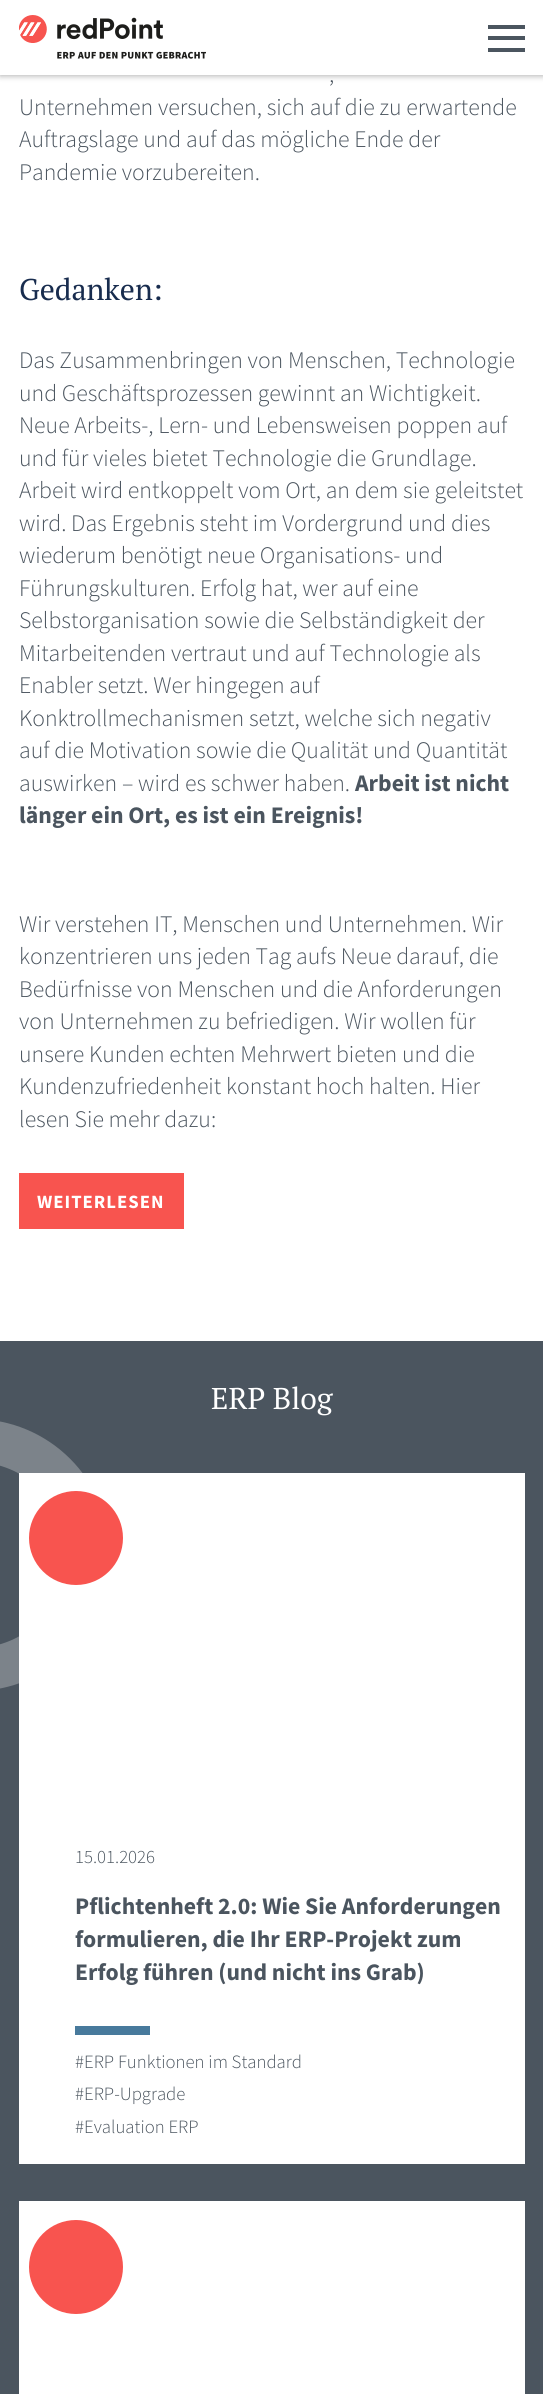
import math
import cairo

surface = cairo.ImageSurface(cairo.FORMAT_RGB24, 543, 2394)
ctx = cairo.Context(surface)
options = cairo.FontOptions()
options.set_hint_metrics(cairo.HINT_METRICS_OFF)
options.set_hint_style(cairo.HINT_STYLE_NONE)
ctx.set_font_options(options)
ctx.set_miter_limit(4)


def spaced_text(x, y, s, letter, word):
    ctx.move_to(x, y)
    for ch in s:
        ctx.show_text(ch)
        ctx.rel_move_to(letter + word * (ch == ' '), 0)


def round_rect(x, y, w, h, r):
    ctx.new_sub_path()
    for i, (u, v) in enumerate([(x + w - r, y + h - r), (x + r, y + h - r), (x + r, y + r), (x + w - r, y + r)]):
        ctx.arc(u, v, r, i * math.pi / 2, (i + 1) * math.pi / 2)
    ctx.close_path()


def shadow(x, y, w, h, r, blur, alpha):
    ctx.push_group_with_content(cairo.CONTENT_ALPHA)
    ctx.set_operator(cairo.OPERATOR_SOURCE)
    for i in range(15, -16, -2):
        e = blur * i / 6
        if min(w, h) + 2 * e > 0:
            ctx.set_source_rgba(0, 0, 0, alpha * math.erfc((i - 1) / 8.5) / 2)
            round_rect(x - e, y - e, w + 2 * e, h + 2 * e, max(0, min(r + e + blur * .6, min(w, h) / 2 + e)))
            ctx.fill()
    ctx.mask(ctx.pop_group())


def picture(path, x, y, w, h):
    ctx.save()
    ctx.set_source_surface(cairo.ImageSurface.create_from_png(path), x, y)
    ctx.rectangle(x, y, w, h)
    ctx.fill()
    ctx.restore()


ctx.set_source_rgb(1, 1, 1)
ctx.paint()
ctx.set_source_rgb(0, 0, 0)
shadow(0, 1, 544, 75, 0, 3, 0.3)
ctx.set_source_rgb(1, 1, 1)
ctx.rectangle(0, 0, 543, 75)
ctx.fill()
picture("img1.png", 19, 15, 187, 44)
ctx.set_source_rgb(0.294, 0.333, 0.373)
ctx.rectangle(488, 36, 37, 4)
ctx.fill()
ctx.rectangle(488, 25, 37, 4)
ctx.fill()
ctx.rectangle(488, 48, 37, 4)
ctx.fill()
ctx.select_font_face("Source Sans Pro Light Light")
ctx.set_font_size(23.75)
ctx.move_to(329, 82)
ctx.show_text(",")
ctx.move_to(19, 115)
ctx.show_text("Unternehmen versuchen, sich auf die zu erwartende")
ctx.move_to(19, 147)
ctx.show_text("Auftragslage und auf das mögliche Ende der")
ctx.move_to(19, 180)
ctx.show_text("Pandemie vorzubereiten.")
ctx.select_font_face("PT Serif")
ctx.set_font_size(30)
ctx.set_source_rgb(0.094, 0.173, 0.306)
ctx.move_to(19, 300)
ctx.show_text("Gedanken:")
ctx.select_font_face("Source Sans Pro Light Light")
ctx.set_font_size(23.75)
ctx.set_source_rgb(0.294, 0.333, 0.373)
ctx.move_to(19, 368)
ctx.show_text("Das Zusammenbringen von Menschen, Technologie")
ctx.move_to(19, 401)
ctx.show_text("und Geschäftsprozessen gewinnt an Wichtigkeit.")
ctx.move_to(19, 433)
ctx.show_text("Neue Arbeits-, Lern- und Lebensweisen poppen auf")
ctx.move_to(19, 466)
ctx.show_text("und für vieles bietet Technologie die Grundlage.")
ctx.move_to(19, 498)
ctx.show_text("Arbeit wird entkoppelt vom Ort, an dem sie geleitstet")
ctx.move_to(19, 531)
ctx.show_text("wird. Das Ergebnis steht im Vordergrund und dies")
ctx.move_to(19, 563)
ctx.show_text("wiederum benötigt neue Organisations- und")
ctx.move_to(19, 596)
ctx.show_text("Führungskulturen. Erfolg hat, wer auf eine")
ctx.move_to(19, 628)
ctx.show_text("Selbstorganisation sowie die Selbständigkeit der")
ctx.move_to(19, 661)
ctx.show_text("Mitarbeitenden vertraut und auf Technologie als")
ctx.move_to(19, 693)
ctx.show_text("Enabler setzt. Wer hingegen auf")
ctx.move_to(19, 726)
ctx.show_text("Konktrollmechanismen setzt, welche sich negativ")
ctx.move_to(19, 758)
ctx.show_text("auf die Motivation sowie die Qualität und Quantität")
ctx.move_to(19, 791)
ctx.show_text("auswirken – wird es schwer haben.")
ctx.select_font_face("Source Sans Pro", cairo.FONT_SLANT_NORMAL, cairo.FONT_WEIGHT_BOLD)
ctx.move_to(355, 791)
ctx.show_text("Arbeit ist nicht")
ctx.move_to(19, 823)
ctx.show_text("länger ein Ort, es ist ein Ereignis!")
ctx.select_font_face("Source Sans Pro Light Light")
ctx.move_to(19, 932)
ctx.show_text("Wir verstehen IT, Menschen und Unternehmen. Wir")
ctx.move_to(19, 964)
ctx.show_text("konzentrieren uns jeden Tag aufs Neue darauf, die")
ctx.move_to(19, 997)
ctx.show_text("Bedürfnisse von Menschen und die Anforderungen")
ctx.move_to(19, 1029)
ctx.show_text("von Unternehmen zu befriedigen. Wir wollen für")
ctx.move_to(19, 1062)
ctx.show_text("unsere Kunden echten Mehrwert bieten und die")
ctx.move_to(19, 1094)
ctx.show_text("Kundenzufriedenheit konstant hoch halten. Hier")
ctx.move_to(19, 1127)
ctx.show_text("lesen Sie mehr dazu:")
ctx.set_source_rgb(0.969, 0.329, 0.31)
ctx.rectangle(19, 1173, 165, 56)
ctx.fill()
ctx.select_font_face("Source Sans Pro", cairo.FONT_SLANT_NORMAL, cairo.FONT_WEIGHT_BOLD)
ctx.set_font_size(18.75)
ctx.set_source_rgb(1, 1, 1)
spaced_text(37, 1208, "WEITERLESEN", 1, 0)
ctx.set_source_rgb(0.294, 0.333, 0.373)
ctx.rectangle(0, 1341, 543, 1053)
ctx.fill()
ctx.arc(-26, 1555, 114.5, 0, 2 * math.pi)
ctx.set_source_rgb(0.486, 0.514, 0.541)
ctx.set_line_width(43)
ctx.stroke()
ctx.select_font_face("PT Serif")
ctx.set_font_size(30)
ctx.set_source_rgb(1, 1, 1)
ctx.move_to(211, 1409)
ctx.show_text("ERP Blog")
ctx.rectangle(19, 1473, 506, 691)
ctx.fill()
ctx.set_source_rgb(0.969, 0.329, 0.31)
ctx.arc(76, 1538, 47, 0, 2 * math.pi)
ctx.fill()
ctx.select_font_face("Source Sans Pro Light Light")
ctx.set_font_size(18.75)
ctx.set_source_rgb(0.294, 0.333, 0.373)
ctx.move_to(75, 1863)
ctx.show_text("15.01.2026")
ctx.select_font_face("Source Sans Pro", cairo.FONT_SLANT_NORMAL, cairo.FONT_WEIGHT_BOLD)
ctx.set_font_size(23.75)
ctx.move_to(75, 1914)
ctx.show_text("Pflichtenheft 2.0: Wie Sie Anforderungen")
ctx.move_to(75, 1947)
ctx.show_text("formulieren, die Ihr ERP-Projekt zum")
ctx.move_to(75, 1980)
ctx.show_text("Erfolg führen (und nicht ins Grab)")
ctx.set_source_rgb(0.282, 0.478, 0.612)
ctx.rectangle(75, 2026, 75, 9)
ctx.fill()
ctx.select_font_face("Source Sans Pro Light Light")
ctx.set_font_size(18.75)
ctx.set_source_rgb(0.294, 0.333, 0.373)
ctx.move_to(75, 2068)
ctx.show_text("#ERP Funktionen im Standard")
ctx.move_to(75, 2100)
ctx.show_text("#ERP-Upgrade")
ctx.move_to(75, 2133)
ctx.show_text("#Evaluation ERP")
ctx.set_source_rgb(1, 1, 1)
ctx.rectangle(19, 2201, 506, 193)
ctx.fill()
ctx.set_source_rgb(0.969, 0.329, 0.31)
ctx.arc(76, 2267, 47, 0, 2 * math.pi)
ctx.fill()
surface.write_to_png("page.png")
